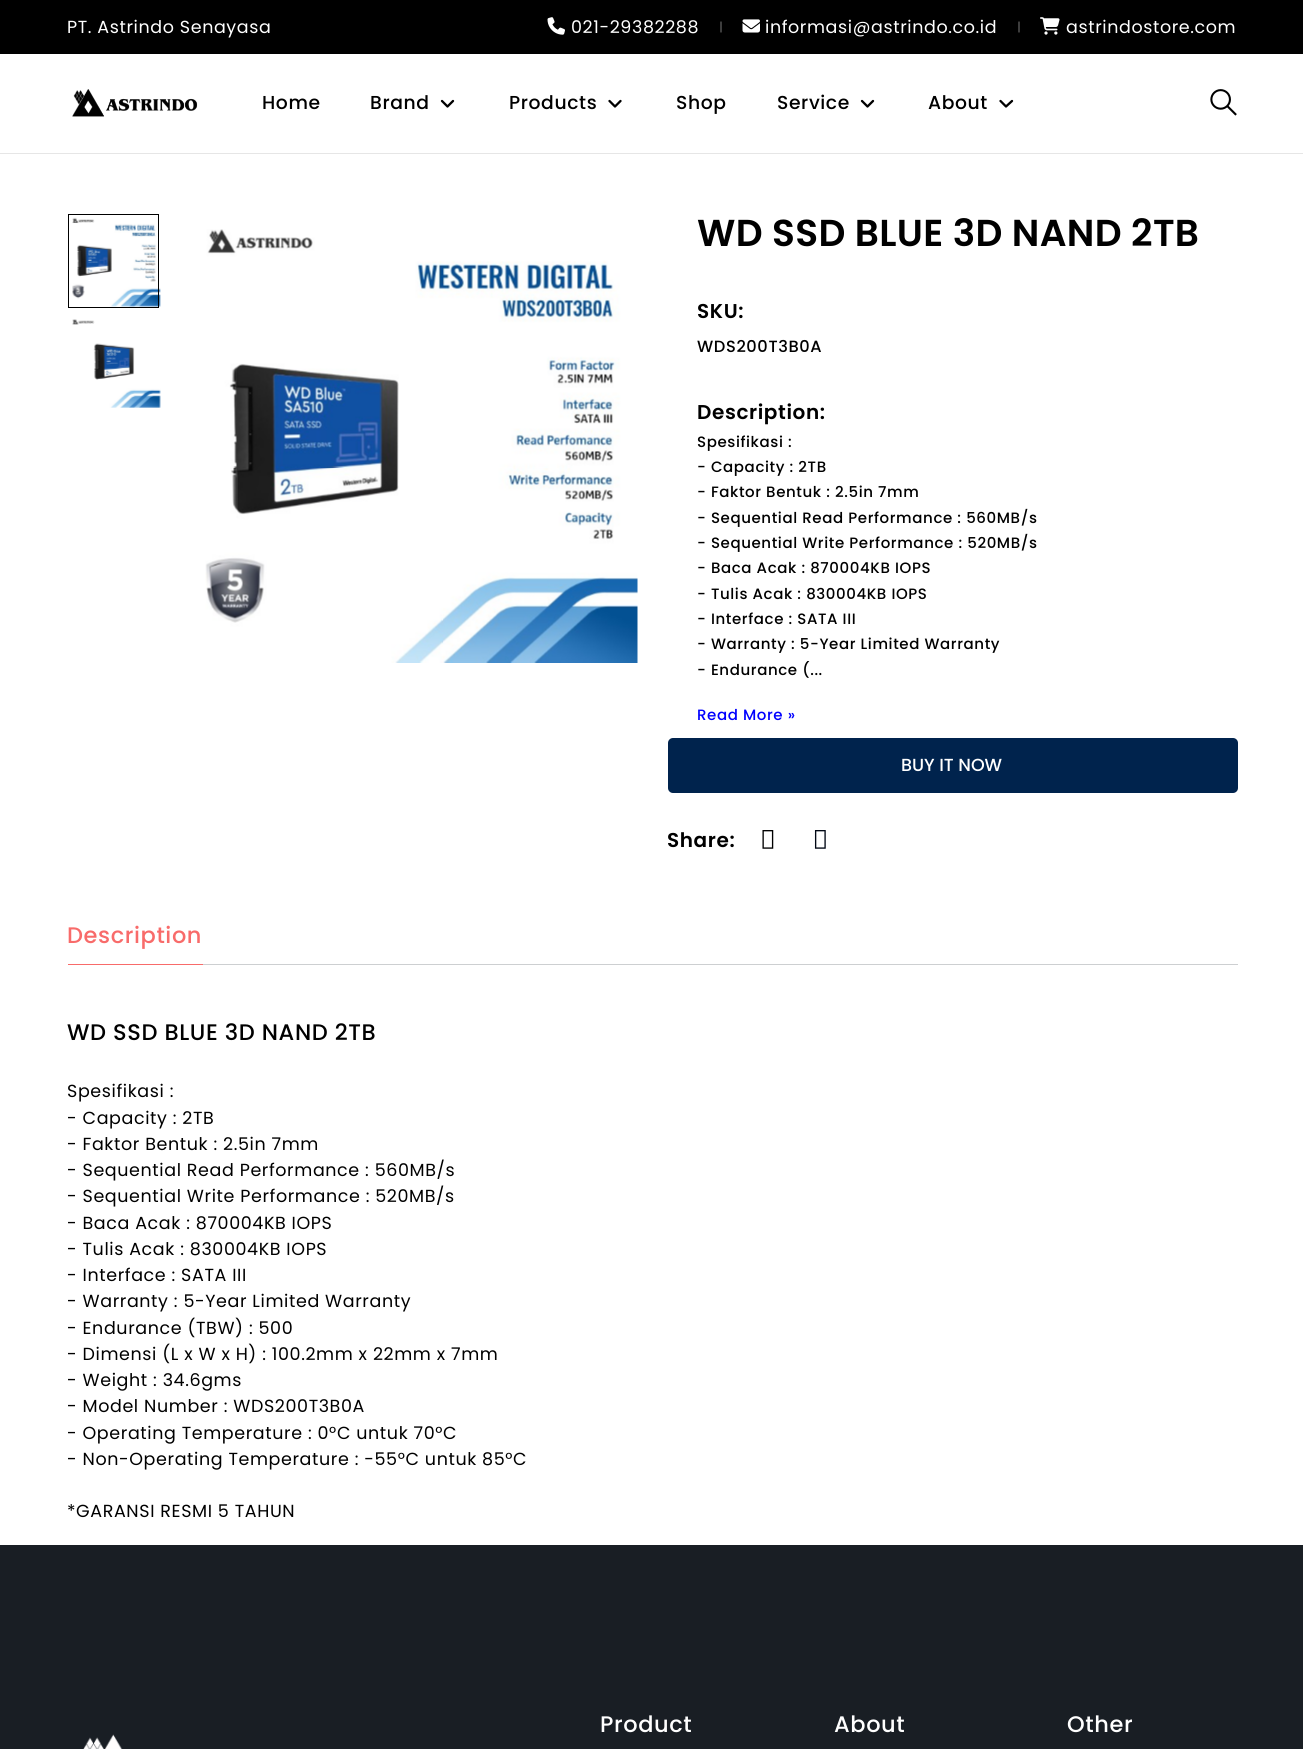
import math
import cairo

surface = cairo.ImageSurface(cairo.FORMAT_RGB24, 1303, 1749)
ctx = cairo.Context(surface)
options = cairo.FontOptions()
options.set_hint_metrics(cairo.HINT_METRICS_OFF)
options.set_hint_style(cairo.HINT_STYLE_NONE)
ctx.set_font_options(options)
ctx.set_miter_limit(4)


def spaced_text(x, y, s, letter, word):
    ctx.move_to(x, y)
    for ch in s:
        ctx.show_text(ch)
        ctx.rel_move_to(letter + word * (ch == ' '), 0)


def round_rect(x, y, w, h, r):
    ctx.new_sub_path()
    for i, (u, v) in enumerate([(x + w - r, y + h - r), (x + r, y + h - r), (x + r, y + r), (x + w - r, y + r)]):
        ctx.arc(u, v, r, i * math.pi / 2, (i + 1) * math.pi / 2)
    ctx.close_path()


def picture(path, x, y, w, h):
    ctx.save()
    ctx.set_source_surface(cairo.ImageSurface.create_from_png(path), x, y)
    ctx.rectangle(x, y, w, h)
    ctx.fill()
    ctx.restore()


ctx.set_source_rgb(1, 1, 1)
ctx.paint()
ctx.set_source_rgb(0, 0, 0)
ctx.rectangle(0, 0, 1303, 54)
ctx.fill()
ctx.select_font_face("Poppins")
ctx.set_font_size(17.5)
ctx.set_source_rgb(1, 1, 1)
spaced_text(67, 33, "PT. Astrindo Senayasa", 0.6, 0)
picture("img1.png", 547, 17, 18, 18)
spaced_text(571, 33, "021-29382288", 0.6, 0)
ctx.new_path()
ctx.move_to(721, 22)
ctx.line_to(721, 32)
ctx.set_source_rgb(0.4, 0.4, 0.4)
ctx.set_line_width(1.2)
ctx.set_line_cap(cairo.LINE_CAP_ROUND)
ctx.stroke()
picture("img2.png", 742, 19, 18, 14)
ctx.set_source_rgb(1, 1, 1)
spaced_text(765, 33, "informasi@astrindo.co.id", 0.6, 0)
ctx.new_path()
ctx.move_to(1019, 22)
ctx.line_to(1019, 32)
ctx.set_source_rgb(0.4, 0.4, 0.4)
ctx.stroke()
picture("img3.png", 1040, 17, 20, 18)
ctx.set_source_rgb(1, 1, 1)
spaced_text(1066, 33, "astrindostore.com", 0.6, 0)
ctx.set_source_rgb(0.902, 0.902, 0.902)
ctx.rectangle(0, 153, 1303, 1)
ctx.fill()
picture("img4.png", 72, 89, 126, 28)
ctx.select_font_face("Poppins Medium")
ctx.set_font_size(18.75)
ctx.set_source_rgb(0, 0, 0)
spaced_text(262, 109, "Home", 0.6, 0)
spaced_text(370, 109, "Brand", 0.6, 0)
ctx.new_path()
ctx.move_to(442, 101)
ctx.line_to(447.5, 106.5)
ctx.line_to(453, 101)
ctx.set_line_width(2.3)
ctx.set_line_join(cairo.LINE_JOIN_ROUND)
ctx.stroke()
spaced_text(509, 109, "Products", 0.6, 0)
ctx.new_path()
ctx.move_to(609.5, 101)
ctx.line_to(615, 106.5)
ctx.line_to(620.5, 101)
ctx.stroke()
spaced_text(676, 109, "Shop", 0.6, 0)
spaced_text(777, 109, "Service", 0.6, 0)
ctx.new_path()
ctx.move_to(862, 101)
ctx.line_to(867.5, 106.5)
ctx.line_to(873, 101)
ctx.stroke()
spaced_text(928, 109, "About", 0.6, 0)
ctx.new_path()
ctx.move_to(1000.5, 101)
ctx.line_to(1006, 106.5)
ctx.line_to(1012, 101)
ctx.stroke()
picture("img5.png", 1210, 89, 27, 27)
picture("img6.png", 72, 217, 89, 90)
ctx.rectangle(68.5, 214.5, 90, 93)
ctx.set_line_width(1)
ctx.set_line_cap(cairo.LINE_CAP_BUTT)
ctx.set_line_join(cairo.LINE_JOIN_MITER)
ctx.stroke()
picture("img7.png", 72, 319, 89, 89)
picture("img8.png", 205, 229, 433, 434)
ctx.select_font_face("Poppins SemiBold")
ctx.set_font_size(37.5)
spaced_text(697, 246, "WD SSD BLUE 3D NAND 2TB", 0.3, 0)
ctx.set_font_size(20)
spaced_text(697, 318, "SKU:", 0.6, 0)
ctx.select_font_face("Poppins Medium")
ctx.set_font_size(16.25)
spaced_text(697, 352, "WDS200T3B0A", 0.6, 0)
ctx.select_font_face("Poppins SemiBold")
ctx.set_font_size(20)
spaced_text(697, 419, "Description:", 0.6, 0)
ctx.select_font_face("Poppins Medium")
ctx.set_font_size(15)
spaced_text(697, 447, "Spesifikasi :", 0.6, 0)
spaced_text(697, 472, "- Capacity : 2TB", 0.6, 0)
spaced_text(697, 497, "- Faktor Bentuk : 2.5in 7mm", 0.6, 0)
spaced_text(697, 523, "- Sequential Read Performance : 560MB/s", 0.6, 0)
spaced_text(697, 548, "- Sequential Write Performance : 520MB/s", 0.6, 0)
spaced_text(697, 573, "- Baca Acak : 870004KB IOPS", 0.6, 0)
spaced_text(697, 599, "- Tulis Acak : 830004KB IOPS", 0.6, 0)
spaced_text(697, 624, "- Interface : SATA III", 0.6, 0)
spaced_text(697, 649, "- Warranty : 5-Year Limited Warranty", 0.6, 0)
spaced_text(697, 675, "- Endurance (...", 0.6, 0)
ctx.set_source_rgb(0, 0, 1)
spaced_text(697, 720, "Read More »", 0.6, 0)
ctx.set_source_rgb(0, 0.137, 0.302)
round_rect(668, 738, 570, 55, 5)
ctx.fill()
ctx.set_font_size(17.5)
ctx.set_source_rgb(1, 1, 1)
ctx.move_to(901, 771)
ctx.show_text("BUY IT NOW")
ctx.select_font_face("Poppins SemiBold")
ctx.set_font_size(20)
ctx.set_source_rgb(0, 0, 0)
spaced_text(667, 847, "Share:", 0.6, 0)
picture("img9.png", 762, 830, 12, 19)
picture("img10.png", 814, 830, 12, 19)
ctx.set_source_rgb(0.804, 0.812, 0.82)
ctx.rectangle(203, 964, 1035, 1)
ctx.fill()
ctx.select_font_face("Poppins Medium")
ctx.set_font_size(22.5)
ctx.set_source_rgb(0.969, 0.42, 0.416)
spaced_text(67, 943, "Description", 0.6, 0)
ctx.rectangle(68, 964, 135, 1)
ctx.fill()
ctx.set_source_rgb(0, 0, 0)
spaced_text(67, 1040, "WD SSD BLUE 3D NAND 2TB", 0.6, 0)
ctx.select_font_face("Poppins")
ctx.set_font_size(17.5)
spaced_text(67, 1097, "Spesifikasi :", 0.6, 0)
spaced_text(67, 1124, "- Capacity : 2TB", 0.6, 0)
spaced_text(67, 1150, "- Faktor Bentuk : 2.5in 7mm", 0.6, 0)
spaced_text(67, 1176, "- Sequential Read Performance : 560MB/s", 0.6, 0)
spaced_text(67, 1202, "- Sequential Write Performance : 520MB/s", 0.6, 0)
spaced_text(67, 1229, "- Baca Acak : 870004KB IOPS", 0.6, 0)
spaced_text(67, 1255, "- Tulis Acak : 830004KB IOPS", 0.6, 0)
spaced_text(67, 1281, "- Interface : SATA III", 0.6, 0)
spaced_text(67, 1307, "- Warranty : 5-Year Limited Warranty", 0.6, 0)
spaced_text(67, 1334, "- Endurance (TBW) : 500", 0.6, 0)
spaced_text(67, 1360, "- Dimensi (L x W x H) : 100.2mm x 22mm x 7mm", 0.6, 0)
spaced_text(67, 1386, "- Weight : 34.6gms", 0.6, 0)
spaced_text(67, 1412, "- Model Number : WDS200T3B0A", 0.6, 0)
spaced_text(67, 1439, "- Operating Temperature : 0°C untuk 70°C", 0.6, 0)
spaced_text(67, 1465, "- Non-Operating Temperature : -55°C untuk 85°C", 0.6, 0)
spaced_text(67, 1517, "*GARANSI RESMI 5 TAHUN", 0.6, 0)
ctx.set_source_rgb(0.098, 0.118, 0.141)
ctx.rectangle(0, 1545, 1303, 204)
ctx.fill()
ctx.select_font_face("Poppins Medium")
ctx.set_font_size(22.5)
ctx.set_source_rgb(1, 1, 1)
spaced_text(600, 1732, "Product", 0.6, 0)
spaced_text(834, 1732, "About", 0.6, 0)
spaced_text(1067, 1732, "Other", 0.6, 0)
picture("img11.png", 83, 1734, 40, 15)
surface.write_to_png("page.png")
